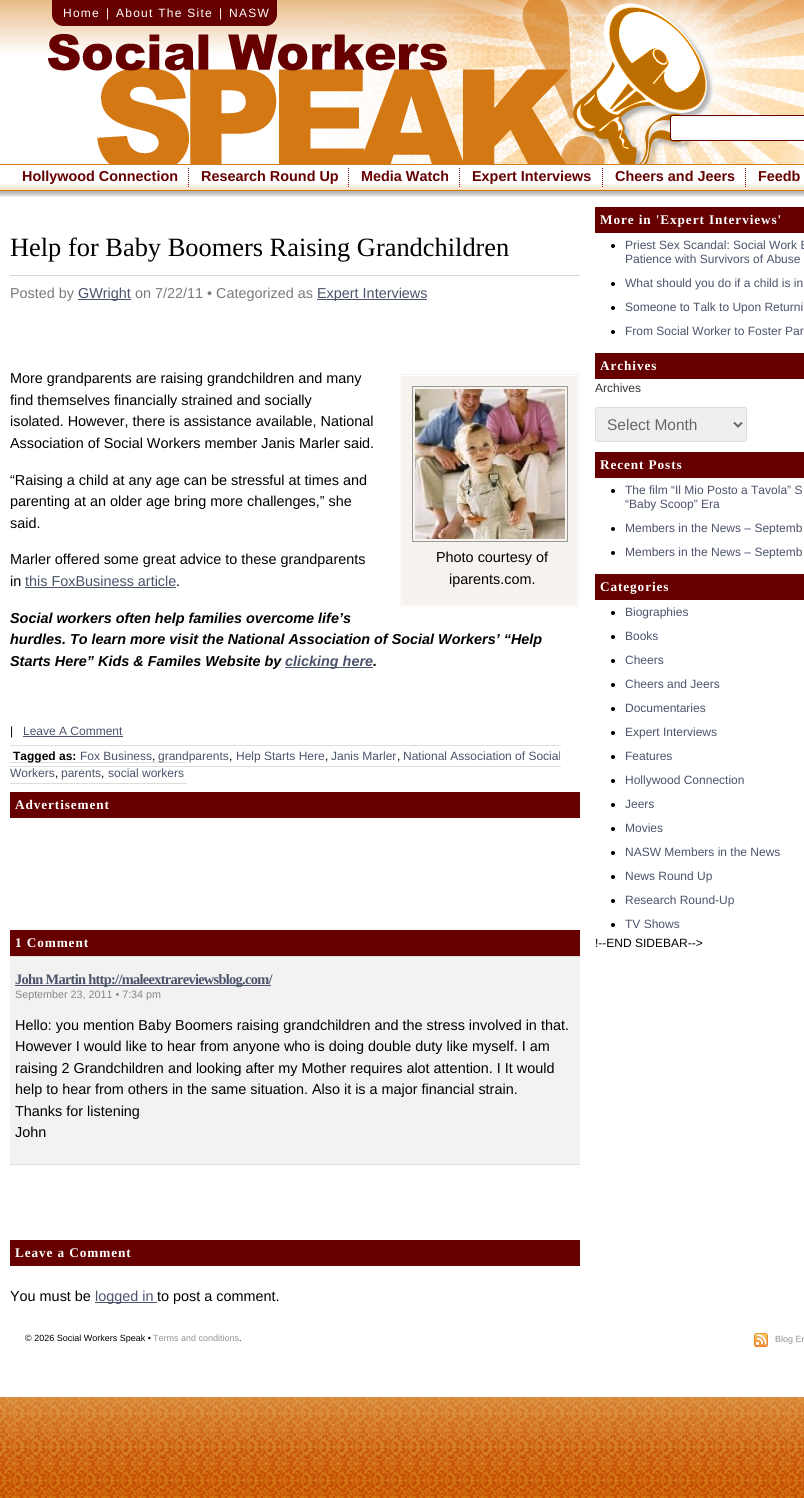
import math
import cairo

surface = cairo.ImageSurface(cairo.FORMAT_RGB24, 804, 1498)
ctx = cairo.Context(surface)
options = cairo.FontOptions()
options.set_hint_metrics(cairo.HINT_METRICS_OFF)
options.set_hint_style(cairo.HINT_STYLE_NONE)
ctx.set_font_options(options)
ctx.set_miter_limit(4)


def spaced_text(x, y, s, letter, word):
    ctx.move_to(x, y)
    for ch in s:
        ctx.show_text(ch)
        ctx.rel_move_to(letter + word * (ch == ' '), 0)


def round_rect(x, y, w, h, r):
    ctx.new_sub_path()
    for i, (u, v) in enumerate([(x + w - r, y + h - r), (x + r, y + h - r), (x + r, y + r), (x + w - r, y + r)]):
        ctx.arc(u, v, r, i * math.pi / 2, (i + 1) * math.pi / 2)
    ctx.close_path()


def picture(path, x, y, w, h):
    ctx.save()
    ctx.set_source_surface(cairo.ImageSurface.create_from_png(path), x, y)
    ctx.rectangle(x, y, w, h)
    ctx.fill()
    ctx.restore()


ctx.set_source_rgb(1, 1, 1)
ctx.paint()
picture("img1.png", 0, 1397, 804, 101)
picture("img2.png", 0, 0, 804, 164)
ctx.select_font_face("Liberation Sans")
ctx.set_font_size(12)
ctx.set_source_rgb(1, 1, 1)
spaced_text(63, 17, "Home", 1.25, 0)
ctx.move_to(106, 17)
ctx.show_text("|")
spaced_text(116, 17, "About The Site", 1.25, 0)
ctx.move_to(219, 17)
ctx.show_text("|")
spaced_text(229, 17, "NASW", 1.25, 0)
round_rect(670.5, 115.5, 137, 25, 2.5)
ctx.fill_preserve()
ctx.set_source_rgb(0.4, 0, 0)
ctx.set_line_width(1)
ctx.stroke()
picture("img3.png", 0, 164, 804, 33)
ctx.new_path()
ctx.move_to(188.5, 168)
ctx.line_to(188.5, 187)
ctx.set_dash([1, 1])
ctx.stroke()
ctx.select_font_face("Liberation Sans", cairo.FONT_SLANT_NORMAL, cairo.FONT_WEIGHT_BOLD)
ctx.set_font_size(14.4)
ctx.move_to(22, 181)
ctx.show_text("Hollywood Connection")
ctx.new_path()
ctx.move_to(348.5, 168)
ctx.line_to(348.5, 187)
ctx.stroke()
ctx.move_to(201, 181)
ctx.show_text("Research Round Up")
ctx.new_path()
ctx.move_to(459.5, 168)
ctx.line_to(459.5, 187)
ctx.stroke()
ctx.move_to(361, 181)
ctx.show_text("Media Watch")
ctx.new_path()
ctx.move_to(602.5, 168)
ctx.line_to(602.5, 187)
ctx.stroke()
ctx.move_to(472, 181)
ctx.show_text("Expert Interviews")
ctx.new_path()
ctx.move_to(745.5, 168)
ctx.line_to(745.5, 187)
ctx.stroke()
ctx.move_to(615, 181)
ctx.show_text("Cheers and Jeers")
ctx.move_to(758, 181)
ctx.show_text("Feedb")
ctx.select_font_face("Liberation Serif")
ctx.set_font_size(26.4)
ctx.set_source_rgb(0, 0, 0)
ctx.move_to(10, 256)
ctx.show_text("Help for Baby Boomers Raising Grandchildren")
ctx.set_source_rgb(0.843, 0.843, 0.843)
ctx.rectangle(10, 275, 570, 1)
ctx.fill()
ctx.select_font_face("Liberation Sans")
ctx.set_font_size(14.4)
ctx.set_source_rgb(0.478, 0.478, 0.478)
ctx.move_to(10, 298)
ctx.show_text("Posted by")
ctx.set_source_rgb(0.294, 0.325, 0.42)
ctx.rectangle(78, 299, 53, 1)
ctx.fill()
ctx.move_to(78, 298)
ctx.show_text("GWright")
ctx.set_source_rgb(0.478, 0.478, 0.478)
ctx.move_to(135, 298)
ctx.show_text("on 7/22/11 • Categorized as")
ctx.set_source_rgb(0.294, 0.325, 0.42)
ctx.rectangle(317, 299, 110, 1)
ctx.fill()
ctx.move_to(317, 298)
ctx.show_text("Expert Interviews")
ctx.set_source_rgb(0, 0, 0)
ctx.move_to(10, 383)
ctx.show_text("More grandparents are raising grandchildren and many")
ctx.move_to(10, 405)
ctx.show_text("find themselves financially strained and socially")
ctx.move_to(10, 426)
ctx.show_text("isolated. However, there is assistance available, National")
ctx.move_to(10, 448)
ctx.show_text("Association of Social Workers member Janis Marler said.")
ctx.move_to(10, 485)
ctx.show_text("“Raising a child at any age can be stressful at times and")
ctx.move_to(10, 506)
ctx.show_text("parenting at an older age bring more challenges,” she")
ctx.move_to(10, 528)
ctx.show_text("said.")
ctx.move_to(10, 564)
ctx.show_text("Marler offered some great advice to these grandparents")
ctx.move_to(10, 586)
ctx.show_text("in")
ctx.set_source_rgb(0.294, 0.325, 0.42)
ctx.move_to(25, 586)
ctx.show_text("this FoxBusiness article")
ctx.rectangle(25, 587, 151, 1)
ctx.fill()
ctx.set_source_rgb(0, 0, 0)
ctx.move_to(176, 586)
ctx.show_text(".")
ctx.set_source_rgb(0.961, 0.953, 0.933)
ctx.rectangle(400, 374, 179, 233)
ctx.fill()
ctx.rectangle(401.5, 375.5, 176, 230)
ctx.set_source_rgb(1, 1, 1)
ctx.set_dash([])
ctx.stroke()
ctx.rectangle(412.5, 386.5, 155, 155)
ctx.set_source_rgb(0.6, 0.6, 0.6)
ctx.stroke()
picture("img4.png", 415, 389, 150, 150)
ctx.set_source_rgb(0, 0, 0)
ctx.move_to(436, 562)
ctx.show_text("Photo courtesy of")
ctx.move_to(449, 584)
ctx.show_text("iparents.com.")
ctx.select_font_face("Liberation Sans", cairo.FONT_SLANT_ITALIC, cairo.FONT_WEIGHT_BOLD)
ctx.move_to(10, 623)
ctx.show_text("Social workers often help families overcome life’s")
ctx.move_to(10, 644)
ctx.show_text("hurdles. To learn more visit the National Association of Social Workers’ “Help")
ctx.move_to(10, 666)
ctx.show_text("Starts Here” Kids & Familes Website by")
ctx.set_source_rgb(0.294, 0.325, 0.42)
ctx.rectangle(285, 667, 88, 1)
ctx.fill()
ctx.move_to(285, 666)
ctx.show_text("clicking here")
ctx.set_source_rgb(0, 0, 0)
ctx.move_to(373, 666)
ctx.show_text(".")
ctx.select_font_face("Liberation Sans")
ctx.set_font_size(12)
ctx.move_to(10, 735)
ctx.show_text("|")
ctx.set_source_rgb(0.294, 0.325, 0.42)
ctx.move_to(23, 735)
ctx.show_text("Leave A Comment")
ctx.rectangle(23, 736, 100, 1)
ctx.fill()
ctx.set_source_rgb(0.867, 0.867, 0.867)
ctx.rectangle(10, 762, 177, 1)
ctx.fill()
ctx.select_font_face("Liberation Sans", cairo.FONT_SLANT_NORMAL, cairo.FONT_WEIGHT_BOLD)
ctx.set_source_rgb(0, 0, 0)
ctx.move_to(13, 760)
ctx.show_text("Tagged as:")
ctx.select_font_face("Liberation Sans")
ctx.set_source_rgb(0.294, 0.325, 0.42)
ctx.move_to(80, 760)
ctx.show_text("Fox Business")
ctx.set_source_rgb(0.867, 0.867, 0.867)
ctx.rectangle(10, 745, 551, 1)
ctx.fill()
ctx.set_source_rgb(0, 0, 0)
ctx.move_to(152, 760)
ctx.show_text(",")
ctx.set_source_rgb(0.867, 0.867, 0.867)
ctx.rectangle(10, 766, 551, 1)
ctx.fill()
ctx.set_source_rgb(0.294, 0.325, 0.42)
ctx.move_to(158, 760)
ctx.show_text("grandparents")
ctx.set_source_rgb(0, 0, 0)
ctx.move_to(229, 760)
ctx.show_text(",")
ctx.set_source_rgb(0.294, 0.325, 0.42)
ctx.move_to(236, 760)
ctx.show_text("Help Starts Here")
ctx.set_source_rgb(0, 0, 0)
ctx.move_to(325, 760)
ctx.show_text(",")
ctx.set_source_rgb(0.294, 0.325, 0.42)
ctx.move_to(331, 760)
ctx.show_text("Janis Marler")
ctx.set_source_rgb(0, 0, 0)
ctx.move_to(397, 760)
ctx.show_text(",")
ctx.set_source_rgb(0.294, 0.325, 0.42)
ctx.move_to(403, 760)
ctx.show_text("National Association of Social")
ctx.move_to(10, 777)
ctx.show_text("Workers")
ctx.set_source_rgb(0, 0, 0)
ctx.move_to(55, 777)
ctx.show_text(",")
ctx.set_source_rgb(0.867, 0.867, 0.867)
ctx.rectangle(10, 783, 177, 1)
ctx.fill()
ctx.set_source_rgb(0.294, 0.325, 0.42)
ctx.move_to(61, 777)
ctx.show_text("parents")
ctx.set_source_rgb(0, 0, 0)
ctx.move_to(101, 777)
ctx.show_text(",")
ctx.set_source_rgb(0.294, 0.325, 0.42)
ctx.move_to(108, 777)
ctx.show_text("social workers")
ctx.set_source_rgb(0.4, 0, 0)
ctx.rectangle(10, 792, 570, 26)
ctx.fill()
ctx.select_font_face("Liberation Serif", cairo.FONT_SLANT_NORMAL, cairo.FONT_WEIGHT_BOLD)
ctx.set_font_size(13.25)
ctx.set_source_rgb(1, 1, 1)
spaced_text(15, 809, "Advertisement", 0.9, 0)
ctx.set_source_rgb(0.4, 0, 0)
ctx.rectangle(10, 930, 570, 26)
ctx.fill()
ctx.set_source_rgb(1, 1, 1)
spaced_text(15, 947, "1 Comment", 0.9, 0)
ctx.set_source_rgb(0.949, 0.949, 0.949)
ctx.rectangle(10, 957, 570, 207)
ctx.fill()
ctx.set_source_rgb(0.867, 0.867, 0.867)
ctx.rectangle(10, 956, 570, 1)
ctx.fill()
ctx.rectangle(10, 1164, 570, 1)
ctx.fill()
ctx.set_source_rgb(0.294, 0.325, 0.42)
ctx.rectangle(15, 985, 256, 1)
ctx.fill()
ctx.set_font_size(14.4)
spaced_text(15, 984, "John Martin http://maleextrareviewsblog.com/", -0.7, 0)
ctx.select_font_face("Liberation Sans")
ctx.set_font_size(10.75)
ctx.set_source_rgb(0.525, 0.525, 0.525)
ctx.move_to(15, 998)
ctx.show_text("September 23, 2011 • 7:34 pm")
ctx.set_font_size(14.4)
ctx.set_source_rgb(0, 0, 0)
ctx.move_to(15, 1030)
ctx.show_text("Hello: you mention Baby Boomers raising grandchildren and the stress involved in that.")
ctx.move_to(15, 1051)
ctx.show_text("However I would like to hear from anyone who is doing double duty like myself. I am")
ctx.move_to(15, 1073)
ctx.show_text("raising 2 Grandchildren and looking after my Mother requires alot attention. I It would")
ctx.move_to(15, 1094)
ctx.show_text("help to hear from others in the same situation. Also it is a major financial strain.")
ctx.move_to(15, 1116)
ctx.show_text("Thanks for listening")
ctx.move_to(15, 1137)
ctx.show_text("John")
ctx.set_source_rgb(0.4, 0, 0)
ctx.rectangle(10, 1240, 570, 26)
ctx.fill()
ctx.select_font_face("Liberation Serif", cairo.FONT_SLANT_NORMAL, cairo.FONT_WEIGHT_BOLD)
ctx.set_font_size(13.25)
ctx.set_source_rgb(1, 1, 1)
spaced_text(15, 1257, "Leave a Comment", 0.9, 0)
ctx.select_font_face("Liberation Sans")
ctx.set_font_size(14.4)
ctx.set_source_rgb(0, 0, 0)
ctx.move_to(10, 1301)
ctx.show_text("You must be")
ctx.set_source_rgb(0.294, 0.325, 0.42)
ctx.rectangle(95, 1302, 62, 1)
ctx.fill()
ctx.move_to(95, 1301)
ctx.show_text("logged in")
ctx.set_source_rgb(0, 0, 0)
ctx.move_to(157, 1301)
ctx.show_text("to post a comment.")
ctx.set_source_rgb(0.4, 0, 0)
ctx.rectangle(595, 207, 209, 26)
ctx.fill()
ctx.select_font_face("Liberation Serif", cairo.FONT_SLANT_NORMAL, cairo.FONT_WEIGHT_BOLD)
ctx.set_font_size(13.25)
ctx.set_source_rgb(1, 1, 1)
spaced_text(600, 224, "More in 'Expert Interviews'", 0.9, 0)
ctx.set_source_rgb(0, 0, 0)
ctx.new_path()
ctx.arc(613, 246, 2, 0, 2 * math.pi)
ctx.fill()
ctx.select_font_face("Liberation Sans")
ctx.set_font_size(12)
ctx.set_source_rgb(0.294, 0.325, 0.42)
ctx.move_to(625, 249)
ctx.show_text("Priest Sex Scandal: Social Work E")
ctx.move_to(625, 263)
ctx.show_text("Patience with Survivors of Abuse")
ctx.set_source_rgb(0, 0, 0)
ctx.new_path()
ctx.arc(613, 284, 2, 0, 2 * math.pi)
ctx.fill()
ctx.set_source_rgb(0.294, 0.325, 0.42)
ctx.move_to(625, 287)
ctx.show_text("What should you do if a child is in")
ctx.set_source_rgb(0, 0, 0)
ctx.new_path()
ctx.arc(613, 308, 2, 0, 2 * math.pi)
ctx.fill()
ctx.set_source_rgb(0.294, 0.325, 0.42)
ctx.move_to(625, 311)
ctx.show_text("Someone to Talk to Upon Returni")
ctx.set_source_rgb(0, 0, 0)
ctx.new_path()
ctx.arc(613, 332, 2, 0, 2 * math.pi)
ctx.fill()
ctx.set_source_rgb(0.294, 0.325, 0.42)
ctx.move_to(625, 335)
ctx.show_text("From Social Worker to Foster Par")
ctx.set_source_rgb(0.4, 0, 0)
ctx.rectangle(595, 353, 209, 26)
ctx.fill()
ctx.select_font_face("Liberation Serif", cairo.FONT_SLANT_NORMAL, cairo.FONT_WEIGHT_BOLD)
ctx.set_font_size(13.25)
ctx.set_source_rgb(1, 1, 1)
spaced_text(600, 370, "Archives", 0.9, 0)
ctx.select_font_face("Liberation Sans")
ctx.set_font_size(12)
ctx.set_source_rgb(0.2, 0.2, 0.2)
ctx.move_to(595, 392)
ctx.show_text("Archives")
ctx.set_source_rgb(0.937, 0.937, 0.937)
round_rect(595.5, 407.5, 151, 34, 2.5)
ctx.fill_preserve()
ctx.set_source_rgb(0.863, 0.863, 0.863)
ctx.stroke()
ctx.new_path()
ctx.move_to(734, 422.5)
ctx.line_to(738, 426.5)
ctx.line_to(742, 422.5)
ctx.set_source_rgb(0.4, 0.4, 0.4)
ctx.set_line_width(2)
ctx.stroke()
ctx.set_font_size(15.5)
ctx.move_to(607, 430)
ctx.show_text("Select Month")
ctx.set_source_rgb(0.4, 0, 0)
ctx.rectangle(595, 452, 209, 26)
ctx.fill()
ctx.select_font_face("Liberation Serif", cairo.FONT_SLANT_NORMAL, cairo.FONT_WEIGHT_BOLD)
ctx.set_font_size(13.25)
ctx.set_source_rgb(1, 1, 1)
spaced_text(600, 469, "Recent Posts", 0.9, 0)
ctx.set_source_rgb(0, 0, 0)
ctx.new_path()
ctx.arc(613, 491, 2, 0, 2 * math.pi)
ctx.fill()
ctx.select_font_face("Liberation Sans")
ctx.set_font_size(12)
ctx.set_source_rgb(0.294, 0.325, 0.42)
ctx.move_to(625, 494)
ctx.show_text("The film “Il Mio Posto a Tavola” S")
ctx.move_to(625, 508)
ctx.show_text("“Baby Scoop” Era")
ctx.set_source_rgb(0, 0, 0)
ctx.new_path()
ctx.arc(613, 529, 2, 0, 2 * math.pi)
ctx.fill()
ctx.set_source_rgb(0.294, 0.325, 0.42)
ctx.move_to(625, 532)
ctx.show_text("Members in the News – Septemb")
ctx.set_source_rgb(0, 0, 0)
ctx.new_path()
ctx.arc(613, 553, 2, 0, 2 * math.pi)
ctx.fill()
ctx.set_source_rgb(0.294, 0.325, 0.42)
ctx.move_to(625, 556)
ctx.show_text("Members in the News – Septemb")
ctx.set_source_rgb(0.4, 0, 0)
ctx.rectangle(595, 574, 209, 26)
ctx.fill()
ctx.select_font_face("Liberation Serif", cairo.FONT_SLANT_NORMAL, cairo.FONT_WEIGHT_BOLD)
ctx.set_font_size(13.25)
ctx.set_source_rgb(1, 1, 1)
spaced_text(600, 591, "Categories", 0.9, 0)
ctx.set_source_rgb(0, 0, 0)
ctx.new_path()
ctx.arc(613, 613, 2, 0, 2 * math.pi)
ctx.fill()
ctx.select_font_face("Liberation Sans")
ctx.set_font_size(12)
ctx.set_source_rgb(0.294, 0.325, 0.42)
ctx.move_to(625, 616)
ctx.show_text("Biographies")
ctx.set_source_rgb(0, 0, 0)
ctx.new_path()
ctx.arc(613, 637, 2, 0, 2 * math.pi)
ctx.fill()
ctx.set_source_rgb(0.294, 0.325, 0.42)
ctx.move_to(625, 640)
ctx.show_text("Books")
ctx.set_source_rgb(0, 0, 0)
ctx.new_path()
ctx.arc(613, 661, 2, 0, 2 * math.pi)
ctx.fill()
ctx.set_source_rgb(0.294, 0.325, 0.42)
ctx.move_to(625, 664)
ctx.show_text("Cheers")
ctx.set_source_rgb(0, 0, 0)
ctx.new_path()
ctx.arc(613, 685, 2, 0, 2 * math.pi)
ctx.fill()
ctx.set_source_rgb(0.294, 0.325, 0.42)
ctx.move_to(625, 688)
ctx.show_text("Cheers and Jeers")
ctx.set_source_rgb(0, 0, 0)
ctx.new_path()
ctx.arc(613, 709, 2, 0, 2 * math.pi)
ctx.fill()
ctx.set_source_rgb(0.294, 0.325, 0.42)
ctx.move_to(625, 712)
ctx.show_text("Documentaries")
ctx.set_source_rgb(0, 0, 0)
ctx.new_path()
ctx.arc(613, 733, 2, 0, 2 * math.pi)
ctx.fill()
ctx.set_source_rgb(0.294, 0.325, 0.42)
ctx.move_to(625, 736)
ctx.show_text("Expert Interviews")
ctx.set_source_rgb(0, 0, 0)
ctx.new_path()
ctx.arc(613, 757, 2, 0, 2 * math.pi)
ctx.fill()
ctx.set_source_rgb(0.294, 0.325, 0.42)
ctx.move_to(625, 760)
ctx.show_text("Features")
ctx.set_source_rgb(0, 0, 0)
ctx.new_path()
ctx.arc(613, 781, 2, 0, 2 * math.pi)
ctx.fill()
ctx.set_source_rgb(0.294, 0.325, 0.42)
ctx.move_to(625, 784)
ctx.show_text("Hollywood Connection")
ctx.set_source_rgb(0, 0, 0)
ctx.new_path()
ctx.arc(613, 805, 2, 0, 2 * math.pi)
ctx.fill()
ctx.set_source_rgb(0.294, 0.325, 0.42)
ctx.move_to(625, 808)
ctx.show_text("Jeers")
ctx.set_source_rgb(0, 0, 0)
ctx.new_path()
ctx.arc(613, 829, 2, 0, 2 * math.pi)
ctx.fill()
ctx.set_source_rgb(0.294, 0.325, 0.42)
ctx.move_to(625, 832)
ctx.show_text("Movies")
ctx.set_source_rgb(0, 0, 0)
ctx.new_path()
ctx.arc(613, 853, 2, 0, 2 * math.pi)
ctx.fill()
ctx.set_source_rgb(0.294, 0.325, 0.42)
ctx.move_to(625, 856)
ctx.show_text("NASW Members in the News")
ctx.set_source_rgb(0, 0, 0)
ctx.new_path()
ctx.arc(613, 877, 2, 0, 2 * math.pi)
ctx.fill()
ctx.set_source_rgb(0.294, 0.325, 0.42)
ctx.move_to(625, 880)
ctx.show_text("News Round Up")
ctx.set_source_rgb(0, 0, 0)
ctx.new_path()
ctx.arc(613, 901, 2, 0, 2 * math.pi)
ctx.fill()
ctx.set_source_rgb(0.294, 0.325, 0.42)
ctx.move_to(625, 904)
ctx.show_text("Research Round-Up")
ctx.set_source_rgb(0, 0, 0)
ctx.new_path()
ctx.arc(613, 925, 2, 0, 2 * math.pi)
ctx.fill()
ctx.set_source_rgb(0.294, 0.325, 0.42)
ctx.move_to(625, 928)
ctx.show_text("TV Shows")
ctx.set_source_rgb(0, 0, 0)
ctx.move_to(595, 947)
ctx.show_text("!--END SIDEBAR-->")
ctx.set_font_size(9)
ctx.move_to(25, 1341)
ctx.show_text("© 2026 Social Workers Speak •")
ctx.set_source_rgb(0.58, 0.573, 0.545)
ctx.move_to(153, 1341)
ctx.show_text("Terms and conditions")
ctx.set_source_rgb(0, 0, 0)
ctx.move_to(239, 1341)
ctx.show_text(".")
picture("img5.png", 754, 1333, 14, 14)
ctx.set_source_rgb(0.58, 0.573, 0.545)
ctx.move_to(775, 1342)
ctx.show_text("Blog En")
surface.write_to_png("page.png")
